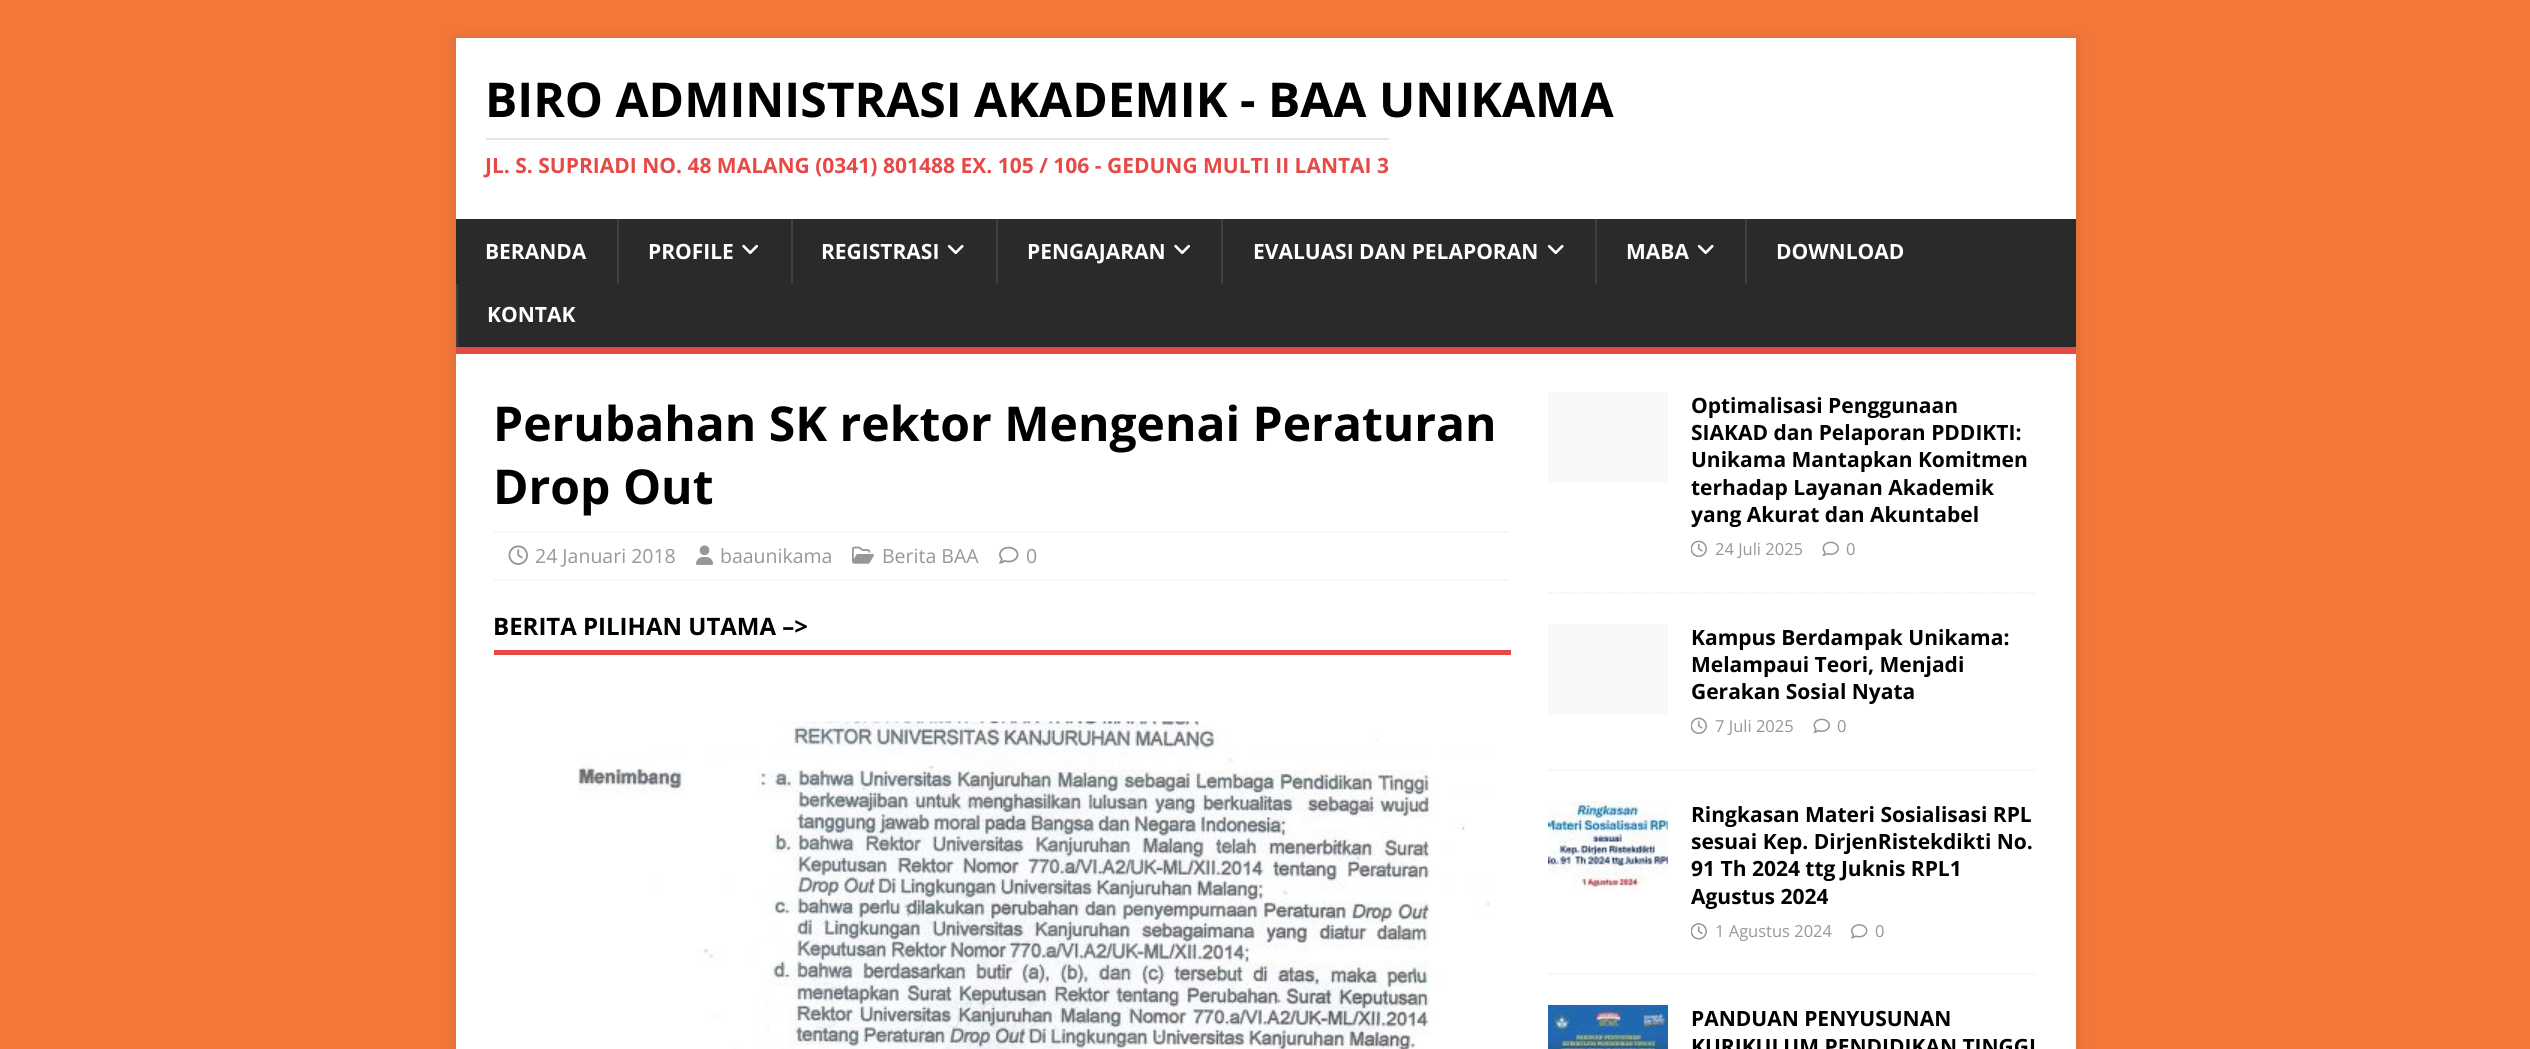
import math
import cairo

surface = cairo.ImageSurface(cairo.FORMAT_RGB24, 2530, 1049)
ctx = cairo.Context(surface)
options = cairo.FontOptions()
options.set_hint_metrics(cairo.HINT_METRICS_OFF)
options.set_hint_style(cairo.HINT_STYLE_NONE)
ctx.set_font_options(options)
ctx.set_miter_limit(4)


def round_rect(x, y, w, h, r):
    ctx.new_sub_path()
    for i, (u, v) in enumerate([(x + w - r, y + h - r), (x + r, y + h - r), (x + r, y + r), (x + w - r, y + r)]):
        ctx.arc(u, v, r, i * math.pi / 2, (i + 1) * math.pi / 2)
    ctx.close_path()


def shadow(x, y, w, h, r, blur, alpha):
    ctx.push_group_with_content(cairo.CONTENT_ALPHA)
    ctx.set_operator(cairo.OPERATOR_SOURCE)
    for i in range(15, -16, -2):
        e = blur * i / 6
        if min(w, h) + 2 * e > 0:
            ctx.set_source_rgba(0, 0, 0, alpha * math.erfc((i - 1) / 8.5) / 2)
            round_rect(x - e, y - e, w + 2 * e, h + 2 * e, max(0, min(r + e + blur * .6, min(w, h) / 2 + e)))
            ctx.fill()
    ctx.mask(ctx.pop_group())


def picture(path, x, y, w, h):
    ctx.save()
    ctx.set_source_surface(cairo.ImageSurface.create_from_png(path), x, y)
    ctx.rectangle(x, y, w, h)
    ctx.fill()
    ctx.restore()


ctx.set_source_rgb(0.957, 0.467, 0.22)
ctx.paint()
ctx.set_source_rgb(0.196, 0.196, 0.196)
shadow(456, 38, 1620, 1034, 0, 7.5, 0.17)
ctx.set_source_rgb(1, 1, 1)
ctx.rectangle(456, 38, 1620, 181)
ctx.fill()
ctx.select_font_face("Open Sans", cairo.FONT_SLANT_NORMAL, cairo.FONT_WEIGHT_BOLD)
ctx.set_font_size(48)
ctx.set_source_rgb(0, 0, 0)
ctx.move_to(485, 117)
ctx.show_text("BIRO ADMINISTRASI AKADEMIK - BAA UNIKAMA")
ctx.set_source_rgb(0.898, 0.898, 0.898)
ctx.rectangle(486, 138, 903, 2)
ctx.fill()
ctx.set_font_size(21)
ctx.set_source_rgb(0.902, 0.286, 0.275)
ctx.move_to(485, 173)
ctx.show_text("JL. S. SUPRIADI NO. 48 MALANG (0341) 801488 EX. 105 / 106 - GEDUNG MULTI II LANTAI 3")
ctx.set_source_rgb(0.165, 0.165, 0.165)
ctx.rectangle(456, 219, 1620, 128)
ctx.fill()
ctx.set_source_rgb(0.902, 0.286, 0.275)
ctx.rectangle(456, 347, 1620, 7)
ctx.fill()
ctx.set_source_rgb(1, 1, 1)
ctx.move_to(485, 259)
ctx.show_text("BERANDA")
ctx.set_source_rgb(0.247, 0.247, 0.247)
ctx.rectangle(617, 219, 2, 65)
ctx.fill()
ctx.set_source_rgb(1, 1, 1)
ctx.move_to(648, 259)
ctx.show_text("PROFILE")
picture("img1.png", 742, 244, 16, 10)
ctx.set_source_rgb(0.247, 0.247, 0.247)
ctx.rectangle(791, 219, 2, 65)
ctx.fill()
ctx.set_source_rgb(1, 1, 1)
ctx.move_to(821, 259)
ctx.show_text("REGISTRASI")
picture("img2.png", 947, 244, 17, 10)
ctx.set_source_rgb(0.247, 0.247, 0.247)
ctx.rectangle(996, 219, 2, 65)
ctx.fill()
ctx.set_source_rgb(1, 1, 1)
ctx.move_to(1027, 259)
ctx.show_text("PENGAJARAN")
picture("img1.png", 1174, 244, 16, 10)
ctx.set_source_rgb(0.247, 0.247, 0.247)
ctx.rectangle(1221, 219, 2, 65)
ctx.fill()
ctx.set_source_rgb(1, 1, 1)
ctx.move_to(1253, 259)
ctx.show_text("EVALUASI DAN PELAPORAN")
picture("img2.png", 1547, 244, 17, 10)
ctx.set_source_rgb(0.247, 0.247, 0.247)
ctx.rectangle(1595, 219, 2, 65)
ctx.fill()
ctx.set_source_rgb(1, 1, 1)
ctx.move_to(1626, 259)
ctx.show_text("MABA")
picture("img2.png", 1697, 244, 17, 10)
ctx.set_source_rgb(0.247, 0.247, 0.247)
ctx.rectangle(1745, 219, 2, 65)
ctx.fill()
ctx.set_source_rgb(1, 1, 1)
ctx.move_to(1776, 259)
ctx.show_text("DOWNLOAD")
ctx.set_source_rgb(0.247, 0.247, 0.247)
ctx.rectangle(456, 284, 2, 63)
ctx.fill()
ctx.set_source_rgb(1, 1, 1)
ctx.move_to(487, 322)
ctx.show_text("KONTAK")
ctx.rectangle(456, 354, 1620, 695)
ctx.fill()
ctx.set_font_size(48)
ctx.set_source_rgb(0, 0, 0)
ctx.move_to(493, 441)
ctx.show_text("Perubahan SK rektor Mengenai Peraturan")
ctx.move_to(493, 504)
ctx.show_text("Drop Out")
ctx.new_path()
ctx.move_to(493.5, 532)
ctx.line_to(1510.5, 532)
ctx.set_source_rgb(0.922, 0.922, 0.922)
ctx.set_line_width(1.5)
ctx.set_dash([1.5, 1.5])
ctx.stroke()
ctx.new_path()
ctx.move_to(493.5, 580)
ctx.line_to(1510.5, 580)
ctx.stroke()
picture("img3.png", 508, 545, 20, 20)
ctx.select_font_face("Open Sans")
ctx.set_font_size(19.5)
ctx.set_source_rgb(0.592, 0.592, 0.592)
ctx.move_to(535, 563)
ctx.show_text("24 Januari 2018")
picture("img4.png", 696, 545, 17, 20)
ctx.move_to(720, 563)
ctx.show_text("baaunikama")
picture("img5.png", 852, 546, 22, 18)
ctx.move_to(882, 563)
ctx.show_text("Berita BAA")
picture("img6.png", 999, 546, 20, 18)
ctx.move_to(1026, 563)
ctx.show_text("0")
ctx.set_source_rgb(0.902, 0.286, 0.275)
ctx.rectangle(494, 650, 1017, 5)
ctx.fill()
ctx.select_font_face("Open Sans", cairo.FONT_SLANT_NORMAL, cairo.FONT_WEIGHT_BOLD)
ctx.set_font_size(24)
ctx.set_source_rgb(0, 0, 0)
ctx.move_to(493, 635)
ctx.show_text("BERITA PILIHAN UTAMA –>")
picture("img7.png", 577, 721, 913, 328)
ctx.new_path()
ctx.move_to(1548, 593)
ctx.line_to(2037, 593)
ctx.set_source_rgb(0.922, 0.922, 0.922)
ctx.stroke()
ctx.set_source_rgb(0.969, 0.969, 0.969)
ctx.rectangle(1548, 392, 120, 90)
ctx.fill()
ctx.set_font_size(21)
ctx.set_source_rgb(0, 0, 0)
ctx.move_to(1691, 413)
ctx.show_text("Optimalisasi Penggunaan")
ctx.move_to(1691, 440)
ctx.show_text("SIAKAD dan Pelaporan PDDIKTI:")
ctx.move_to(1691, 467)
ctx.show_text("Unikama Mantapkan Komitmen")
ctx.move_to(1691, 495)
ctx.show_text("terhadap Layanan Akademik")
ctx.move_to(1691, 522)
ctx.show_text("yang Akurat dan Akuntabel")
picture("img8.png", 1691, 540, 16, 17)
ctx.select_font_face("Open Sans")
ctx.set_font_size(16.5)
ctx.set_source_rgb(0.592, 0.592, 0.592)
ctx.move_to(1715, 555)
ctx.show_text("24 Juli 2025")
picture("img9.png", 1822, 541, 17, 15)
ctx.move_to(1846, 555)
ctx.show_text("0")
ctx.new_path()
ctx.move_to(1548, 770)
ctx.line_to(2037, 770)
ctx.set_source_rgb(0.922, 0.922, 0.922)
ctx.stroke()
ctx.set_source_rgb(0.969, 0.969, 0.969)
ctx.rectangle(1548, 624, 120, 90)
ctx.fill()
ctx.select_font_face("Open Sans", cairo.FONT_SLANT_NORMAL, cairo.FONT_WEIGHT_BOLD)
ctx.set_font_size(21)
ctx.set_source_rgb(0, 0, 0)
ctx.move_to(1691, 645)
ctx.show_text("Kampus Berdampak Unikama:")
ctx.move_to(1691, 672)
ctx.show_text("Melampaui Teori, Menjadi")
ctx.move_to(1691, 699)
ctx.show_text("Gerakan Sosial Nyata")
picture("img8.png", 1691, 717, 16, 17)
ctx.select_font_face("Open Sans")
ctx.set_font_size(16.5)
ctx.set_source_rgb(0.592, 0.592, 0.592)
ctx.move_to(1715, 732)
ctx.show_text("7 Juli 2025")
picture("img9.png", 1813, 718, 17, 15)
ctx.move_to(1837, 732)
ctx.show_text("0")
ctx.new_path()
ctx.move_to(1548, 974)
ctx.line_to(2037, 974)
ctx.set_source_rgb(0.922, 0.922, 0.922)
ctx.stroke()
picture("img10.png", 1548, 801, 120, 90)
ctx.select_font_face("Open Sans", cairo.FONT_SLANT_NORMAL, cairo.FONT_WEIGHT_BOLD)
ctx.set_font_size(21)
ctx.set_source_rgb(0, 0, 0)
ctx.move_to(1691, 822)
ctx.show_text("Ringkasan Materi Sosialisasi RPL")
ctx.move_to(1691, 849)
ctx.show_text("sesuai Kep. DirjenRistekdikti No.")
ctx.move_to(1691, 876)
ctx.show_text("91 Th 2024 ttg Juknis RPL1")
ctx.move_to(1691, 904)
ctx.show_text("Agustus 2024")
picture("img11.png", 1691, 923, 16, 17)
ctx.select_font_face("Open Sans")
ctx.set_font_size(16.5)
ctx.set_source_rgb(0.592, 0.592, 0.592)
ctx.move_to(1715, 937)
ctx.show_text("1 Agustus 2024")
picture("img12.png", 1851, 924, 17, 15)
ctx.move_to(1875, 937)
ctx.show_text("0")
picture("img13.png", 1548, 1005, 120, 44)
ctx.select_font_face("Open Sans", cairo.FONT_SLANT_NORMAL, cairo.FONT_WEIGHT_BOLD)
ctx.set_font_size(21)
ctx.set_source_rgb(0, 0, 0)
ctx.move_to(1691, 1026)
ctx.show_text("PANDUAN PENYUSUNAN")
ctx.move_to(1691, 1054)
ctx.show_text("KURIKULUM PENDIDIKAN TINGGI")
surface.write_to_png("page.png")
